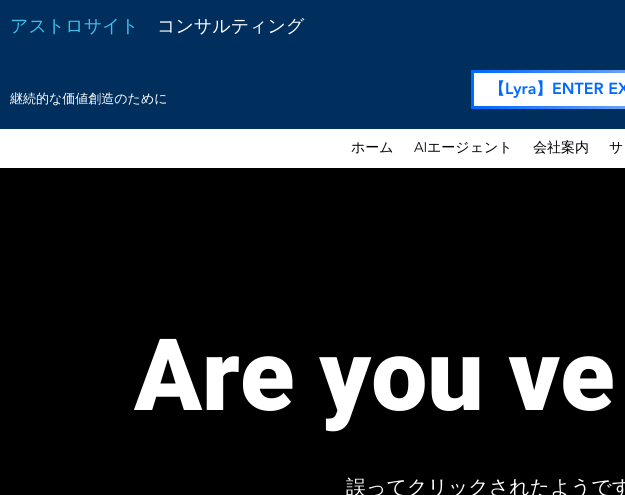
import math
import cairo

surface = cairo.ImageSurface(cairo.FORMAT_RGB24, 625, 495)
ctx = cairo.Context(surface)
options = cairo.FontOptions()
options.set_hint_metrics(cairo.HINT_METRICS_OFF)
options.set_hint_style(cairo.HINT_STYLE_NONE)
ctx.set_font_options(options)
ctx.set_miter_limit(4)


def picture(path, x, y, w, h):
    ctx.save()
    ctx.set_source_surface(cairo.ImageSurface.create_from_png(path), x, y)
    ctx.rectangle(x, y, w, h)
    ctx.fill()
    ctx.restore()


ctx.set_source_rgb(0, 0, 0)
ctx.paint()
ctx.set_source_rgb(0, 0.18, 0.365)
ctx.rectangle(0, 0, 625, 129)
ctx.fill()
ctx.select_font_face("WenQuanYi Zen Hei Medium")
ctx.set_font_size(18)
ctx.set_source_rgb(0.239, 0.757, 0.914)
ctx.move_to(10, 32)
ctx.show_text("アストロサイト")
ctx.set_source_rgb(1, 1, 1)
ctx.move_to(157, 32)
ctx.show_text("コンサルティング")
ctx.set_font_size(13)
ctx.move_to(10, 103)
ctx.show_text("継続的な価値創造のために")
ctx.rectangle(474, 73, 151, 33)
ctx.fill()
picture("img1.png", 471, 70, 154, 39)
ctx.select_font_face("WenQuanYi Zen Hei", cairo.FONT_SLANT_NORMAL, cairo.FONT_WEIGHT_BOLD)
ctx.set_font_size(16)
ctx.set_source_rgb(0, 0.412, 1)
ctx.move_to(489, 94)
ctx.show_text("【")
ctx.select_font_face("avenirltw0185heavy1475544 Black")
ctx.move_to(505, 94)
ctx.show_text("Lyra")
ctx.select_font_face("WenQuanYi Zen Hei", cairo.FONT_SLANT_NORMAL, cairo.FONT_WEIGHT_BOLD)
ctx.move_to(536, 94)
ctx.show_text("】")
ctx.select_font_face("avenirltw0185heavy1475544 Black")
ctx.move_to(552, 94)
ctx.show_text("ENTER EX")
ctx.set_source_rgb(1, 1, 1)
ctx.rectangle(0, 129, 625, 39)
ctx.fill()
ctx.select_font_face("WenQuanYi Zen Hei Medium")
ctx.set_font_size(14)
ctx.set_source_rgb(0, 0, 0)
ctx.move_to(351, 152)
ctx.show_text("ホーム")
ctx.select_font_face("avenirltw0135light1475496 Light")
ctx.move_to(414, 152)
ctx.show_text("AI")
ctx.select_font_face("WenQuanYi Zen Hei Medium")
ctx.move_to(427, 152)
ctx.show_text("エージェント")
ctx.move_to(533, 152)
ctx.show_text("会社案内")
ctx.move_to(609, 152)
ctx.show_text("サ")
ctx.select_font_face("Roboto Black")
ctx.set_font_size(100)
ctx.set_source_rgb(1, 1, 1)
ctx.move_to(134, 410)
ctx.show_text("Are you ve")
ctx.select_font_face("WenQuanYi Zen Hei Medium")
ctx.set_font_size(20)
ctx.move_to(346, 494)
ctx.show_text("誤ってクリックされたようです")
surface.write_to_png("page.png")
